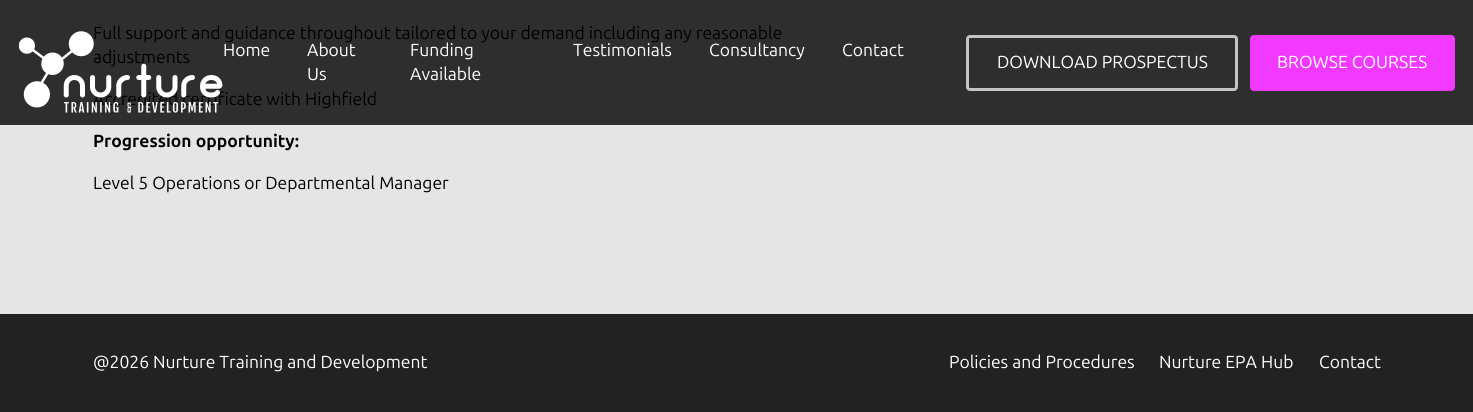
import math
import cairo

surface = cairo.ImageSurface(cairo.FORMAT_RGB24, 1473, 412)
ctx = cairo.Context(surface)
options = cairo.FontOptions()
options.set_hint_metrics(cairo.HINT_METRICS_OFF)
options.set_hint_style(cairo.HINT_STYLE_NONE)
ctx.set_font_options(options)
ctx.set_miter_limit(4)


def round_rect(x, y, w, h, r):
    ctx.new_sub_path()
    for i, (u, v) in enumerate([(x + w - r, y + h - r), (x + r, y + h - r), (x + r, y + r), (x + w - r, y + r)]):
        ctx.arc(u, v, r, i * math.pi / 2, (i + 1) * math.pi / 2)
    ctx.close_path()


def picture(path, x, y, w, h):
    ctx.save()
    ctx.set_source_surface(cairo.ImageSurface.create_from_png(path), x, y)
    ctx.rectangle(x, y, w, h)
    ctx.fill()
    ctx.restore()


ctx.set_source_rgb(0.133, 0.133, 0.133)
ctx.paint()
ctx.set_source_rgb(0.898, 0.898, 0.898)
ctx.rectangle(0, 125, 1473, 189)
ctx.fill()
ctx.set_source_rgb(0.18, 0.18, 0.18)
ctx.rectangle(0, 0, 1473, 125)
ctx.fill()
ctx.select_font_face("Ubuntu")
ctx.set_font_size(17.5)
ctx.set_source_rgb(0, 0, 0)
ctx.move_to(93, 39)
ctx.show_text("Full support and guidance throughout tailored to your demand including any reasonable")
ctx.move_to(93, 63)
ctx.show_text("adjustments")
ctx.move_to(93, 105)
ctx.show_text("Accredited certificate with Highfield")
ctx.select_font_face("Ubuntu", cairo.FONT_SLANT_NORMAL, cairo.FONT_WEIGHT_BOLD)
ctx.move_to(93, 147)
ctx.show_text("Progression opportunity:")
ctx.select_font_face("Ubuntu")
ctx.move_to(93, 189)
ctx.show_text("Level 5 Operations or Departmental Manager")
picture("img1.png", 19, 31, 204, 82)
ctx.set_source_rgb(1, 1, 1)
ctx.move_to(223, 56)
ctx.show_text("Home")
ctx.move_to(307, 56)
ctx.show_text("About")
ctx.move_to(307, 80)
ctx.show_text("Us")
ctx.move_to(410, 56)
ctx.show_text("Funding")
ctx.move_to(410, 80)
ctx.show_text("Available")
ctx.move_to(573, 56)
ctx.show_text("Testimonials")
ctx.move_to(709, 56)
ctx.show_text("Consultancy")
ctx.move_to(842, 56)
ctx.show_text("Contact")
round_rect(967.5, 36.5, 269, 53, 2.5)
ctx.set_source_rgb(0.769, 0.769, 0.769)
ctx.set_line_width(3)
ctx.stroke()
ctx.set_source_rgb(1, 1, 1)
ctx.move_to(997, 68)
ctx.show_text("DOWNLOAD PROSPECTUS")
ctx.set_source_rgb(0.949, 0.224, 1)
round_rect(1250, 35, 205, 56, 4)
ctx.fill()
ctx.set_source_rgb(1, 1, 1)
ctx.move_to(1277, 68)
ctx.show_text("BROWSE COURSES")
ctx.move_to(93, 368)
ctx.show_text("@2026 Nurture Training and Development")
ctx.move_to(949, 368)
ctx.show_text("Policies and Procedures")
ctx.move_to(1159, 368)
ctx.show_text("Nurture EPA Hub")
ctx.move_to(1319, 368)
ctx.show_text("Contact")
surface.write_to_png("page.png")
